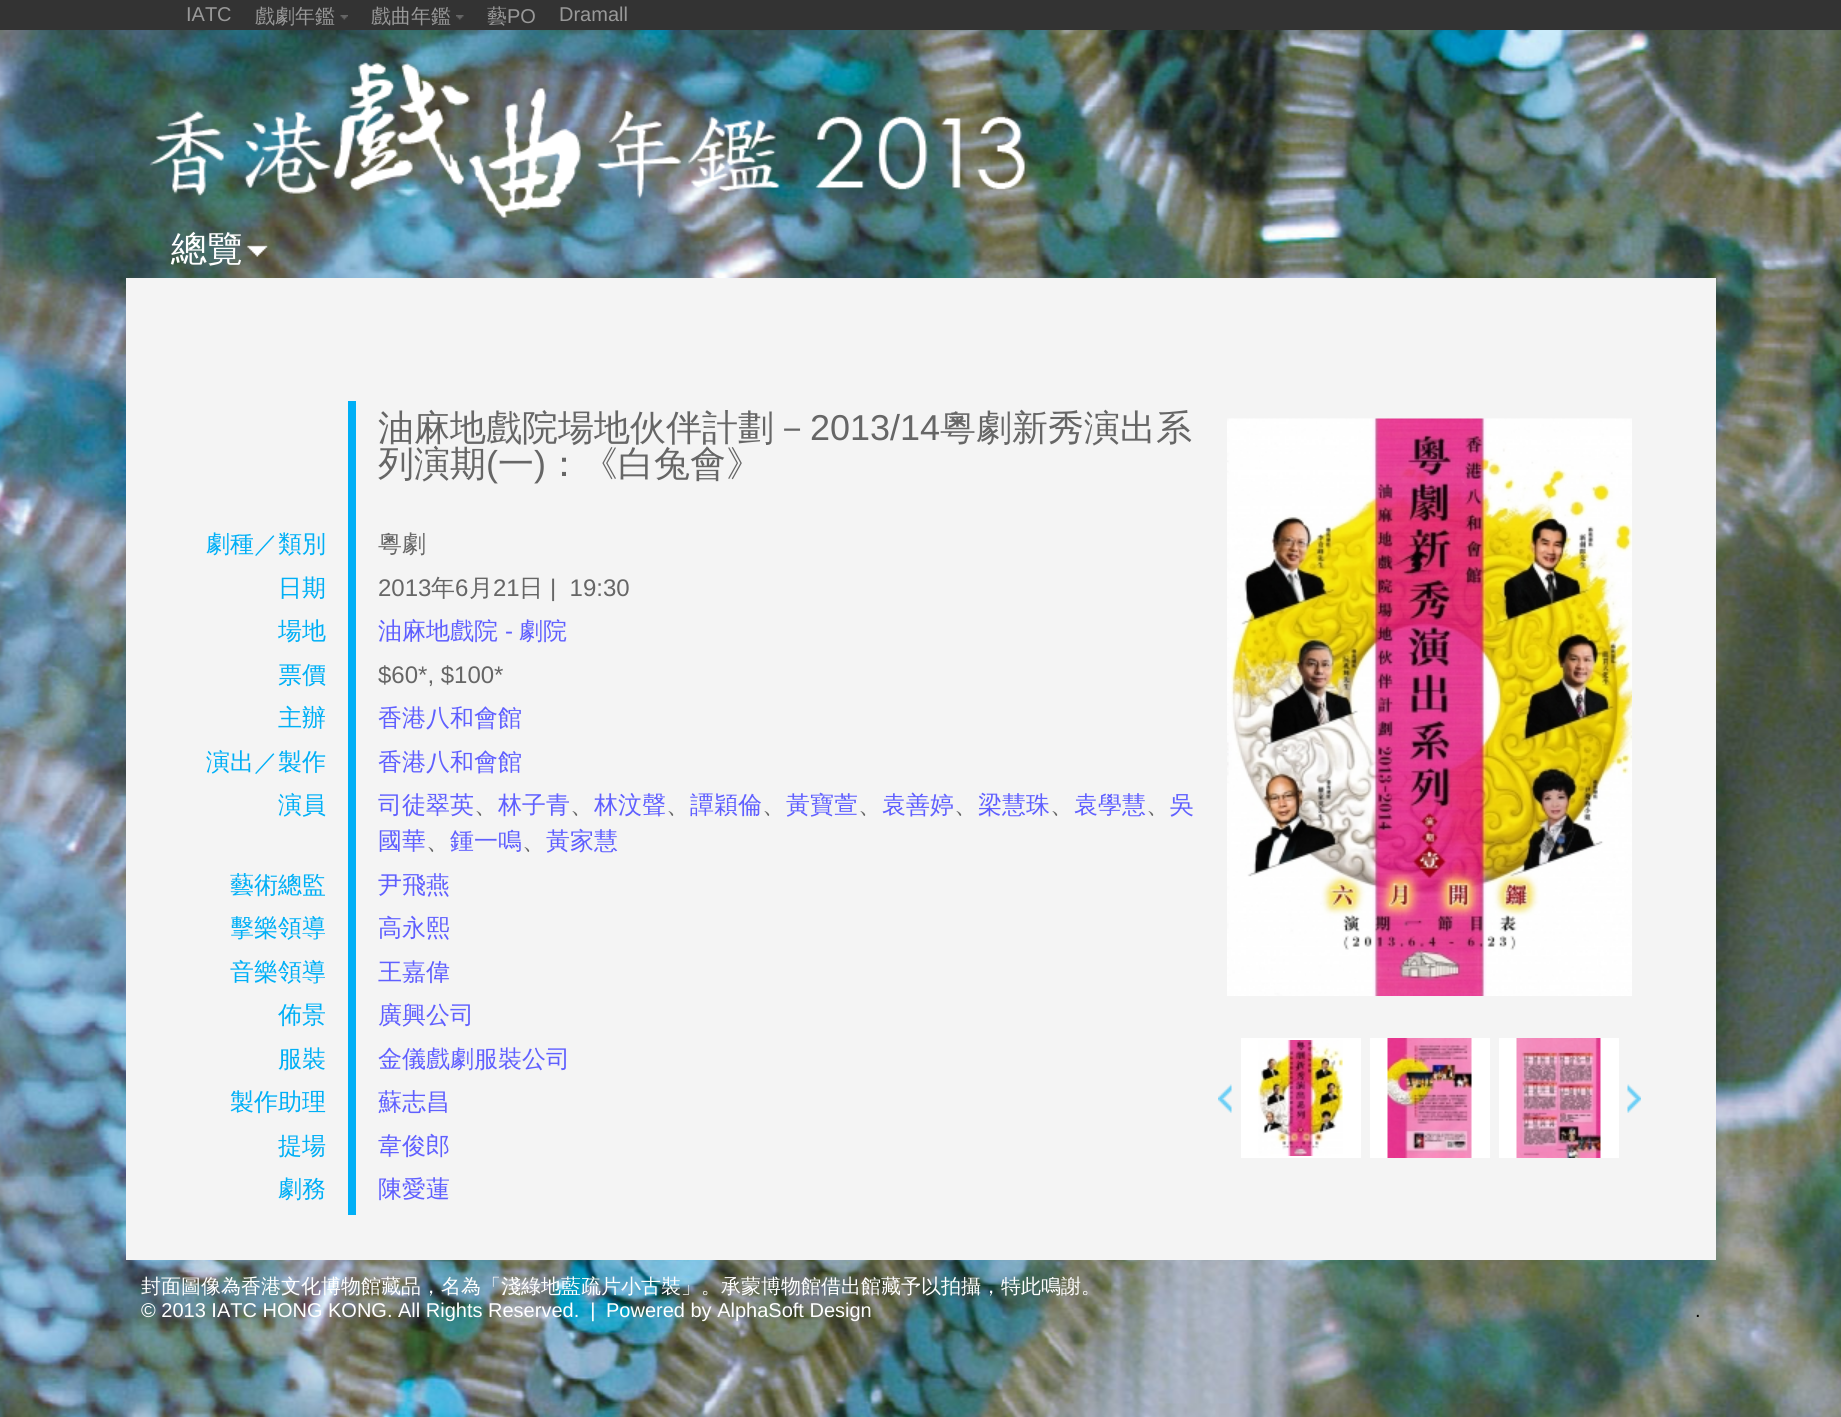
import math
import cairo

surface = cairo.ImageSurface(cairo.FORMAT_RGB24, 1841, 1417)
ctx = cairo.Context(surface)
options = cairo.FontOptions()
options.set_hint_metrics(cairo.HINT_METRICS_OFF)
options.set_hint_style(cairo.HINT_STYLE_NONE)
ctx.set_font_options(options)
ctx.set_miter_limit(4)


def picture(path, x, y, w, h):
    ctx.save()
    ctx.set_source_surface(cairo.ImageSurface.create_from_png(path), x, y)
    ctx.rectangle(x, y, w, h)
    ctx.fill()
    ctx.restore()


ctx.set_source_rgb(1, 1, 1)
ctx.paint()
ctx.set_source_rgb(0.2, 0.2, 0.2)
ctx.rectangle(0, 0, 1841, 30)
ctx.fill()
ctx.select_font_face("Liberation Sans")
ctx.set_font_size(20)
ctx.set_source_rgb(0.6, 0.6, 0.6)
ctx.move_to(186, 21)
ctx.show_text("IATC")
ctx.select_font_face("WenQuanYi Zen Hei Medium")
ctx.move_to(255, 23)
ctx.show_text("戲劇年鑑")
picture("img1.png", 340, 15, 8, 5)
ctx.move_to(371, 23)
ctx.show_text("戲曲年鑑")
picture("img2.png", 456, 15, 8, 5)
ctx.move_to(487, 23)
ctx.show_text("藝")
ctx.select_font_face("Liberation Sans")
ctx.move_to(507, 23)
ctx.show_text("PO")
ctx.move_to(559, 21)
ctx.show_text("Dramall")
picture("img3.png", 0, 30, 1841, 1387)
picture("img4.png", 149, 62, 876, 156)
ctx.select_font_face("WenQuanYi Zen Hei Medium")
ctx.set_font_size(36)
ctx.set_source_rgb(1, 1, 1)
ctx.move_to(171, 261)
ctx.show_text("總覽")
picture("img5.png", 247, 245, 21, 12)
ctx.set_source_rgb(0.957, 0.957, 0.957)
ctx.rectangle(126, 278, 1590, 982)
ctx.fill()
ctx.set_source_rgb(0, 0.686, 0.961)
ctx.rectangle(348, 401, 8, 814)
ctx.fill()
ctx.set_source_rgb(0.4, 0.4, 0.4)
ctx.move_to(378, 440)
ctx.show_text("油麻地戲院場地伙伴計劃－")
ctx.select_font_face("Liberation Sans")
ctx.move_to(810, 440)
ctx.show_text("2013/14")
ctx.select_font_face("WenQuanYi Zen Hei Medium")
ctx.move_to(940, 440)
ctx.show_text("粵劇新秀演出系")
ctx.move_to(378, 476)
ctx.show_text("列演期")
ctx.select_font_face("Liberation Sans")
ctx.move_to(486, 476)
ctx.show_text("(")
ctx.select_font_face("WenQuanYi Zen Hei Medium")
ctx.move_to(498, 476)
ctx.show_text("一")
ctx.select_font_face("Liberation Sans")
ctx.move_to(534, 476)
ctx.show_text(")")
ctx.select_font_face("WenQuanYi Zen Hei Medium")
ctx.move_to(546, 476)
ctx.show_text("：《白兔會》")
ctx.set_font_size(24)
ctx.set_source_rgb(0, 0.686, 0.961)
ctx.move_to(206, 552)
ctx.show_text("劇種／類別")
ctx.set_source_rgb(0.4, 0.4, 0.4)
ctx.move_to(378, 552)
ctx.show_text("粵劇")
ctx.set_source_rgb(0, 0.686, 0.961)
ctx.move_to(278, 596)
ctx.show_text("日期")
ctx.select_font_face("Liberation Sans")
ctx.set_source_rgb(0.4, 0.4, 0.4)
ctx.move_to(378, 596)
ctx.show_text("2013")
ctx.select_font_face("WenQuanYi Zen Hei Medium")
ctx.move_to(431, 596)
ctx.show_text("年")
ctx.select_font_face("Liberation Sans")
ctx.move_to(455, 596)
ctx.show_text("6")
ctx.select_font_face("WenQuanYi Zen Hei Medium")
ctx.move_to(469, 596)
ctx.show_text("月")
ctx.select_font_face("Liberation Sans")
ctx.move_to(493, 596)
ctx.show_text("21")
ctx.select_font_face("WenQuanYi Zen Hei Medium")
ctx.move_to(519, 596)
ctx.show_text("日")
ctx.select_font_face("Liberation Sans")
ctx.move_to(550, 596)
ctx.show_text("|  19:30")
ctx.select_font_face("WenQuanYi Zen Hei Medium")
ctx.set_source_rgb(0, 0.686, 0.961)
ctx.move_to(278, 639)
ctx.show_text("場地")
ctx.set_source_rgb(0.373, 0.373, 1)
ctx.move_to(378, 639)
ctx.show_text("油麻地戲院")
ctx.select_font_face("Liberation Sans")
ctx.move_to(505, 639)
ctx.show_text("-")
ctx.select_font_face("WenQuanYi Zen Hei Medium")
ctx.move_to(519, 639)
ctx.show_text("劇院")
ctx.set_source_rgb(0, 0.686, 0.961)
ctx.move_to(278, 683)
ctx.show_text("票價")
ctx.select_font_face("Liberation Sans")
ctx.set_source_rgb(0.4, 0.4, 0.4)
ctx.move_to(378, 683)
ctx.show_text("$60*, $100*")
ctx.select_font_face("WenQuanYi Zen Hei Medium")
ctx.set_source_rgb(0, 0.686, 0.961)
ctx.move_to(278, 726)
ctx.show_text("主辦")
ctx.set_source_rgb(0.373, 0.373, 1)
ctx.move_to(378, 726)
ctx.show_text("香港八和會館")
ctx.set_source_rgb(0, 0.686, 0.961)
ctx.move_to(206, 770)
ctx.show_text("演出／製作")
ctx.set_source_rgb(0.373, 0.373, 1)
ctx.move_to(378, 770)
ctx.show_text("香港八和會館")
ctx.set_source_rgb(0, 0.686, 0.961)
ctx.move_to(278, 813)
ctx.show_text("演員")
ctx.set_source_rgb(0.373, 0.373, 1)
ctx.move_to(378, 813)
ctx.show_text("司徒翠英")
ctx.set_source_rgb(0.4, 0.4, 0.4)
ctx.move_to(474, 813)
ctx.show_text("、")
ctx.set_source_rgb(0.373, 0.373, 1)
ctx.move_to(498, 813)
ctx.show_text("林子青")
ctx.set_source_rgb(0.4, 0.4, 0.4)
ctx.move_to(570, 813)
ctx.show_text("、")
ctx.set_source_rgb(0.373, 0.373, 1)
ctx.move_to(594, 813)
ctx.show_text("林汶聲")
ctx.set_source_rgb(0.4, 0.4, 0.4)
ctx.move_to(666, 813)
ctx.show_text("、")
ctx.set_source_rgb(0.373, 0.373, 1)
ctx.move_to(690, 813)
ctx.show_text("譚穎倫")
ctx.set_source_rgb(0.4, 0.4, 0.4)
ctx.move_to(762, 813)
ctx.show_text("、")
ctx.set_source_rgb(0.373, 0.373, 1)
ctx.move_to(786, 813)
ctx.show_text("黃寶萱")
ctx.set_source_rgb(0.4, 0.4, 0.4)
ctx.move_to(858, 813)
ctx.show_text("、")
ctx.set_source_rgb(0.373, 0.373, 1)
ctx.move_to(882, 813)
ctx.show_text("袁善婷")
ctx.set_source_rgb(0.4, 0.4, 0.4)
ctx.move_to(954, 813)
ctx.show_text("、")
ctx.set_source_rgb(0.373, 0.373, 1)
ctx.move_to(978, 813)
ctx.show_text("梁慧珠")
ctx.set_source_rgb(0.4, 0.4, 0.4)
ctx.move_to(1050, 813)
ctx.show_text("、")
ctx.set_source_rgb(0.373, 0.373, 1)
ctx.move_to(1074, 813)
ctx.show_text("袁學慧")
ctx.set_source_rgb(0.4, 0.4, 0.4)
ctx.move_to(1146, 813)
ctx.show_text("、")
ctx.set_source_rgb(0.373, 0.373, 1)
ctx.move_to(1170, 813)
ctx.show_text("吳")
ctx.move_to(378, 849)
ctx.show_text("國華")
ctx.set_source_rgb(0.4, 0.4, 0.4)
ctx.move_to(426, 849)
ctx.show_text("、")
ctx.set_source_rgb(0.373, 0.373, 1)
ctx.move_to(450, 849)
ctx.show_text("鍾一鳴")
ctx.set_source_rgb(0.4, 0.4, 0.4)
ctx.move_to(522, 849)
ctx.show_text("、")
ctx.set_source_rgb(0.373, 0.373, 1)
ctx.move_to(546, 849)
ctx.show_text("黃家慧")
ctx.set_source_rgb(0, 0.686, 0.961)
ctx.move_to(230, 893)
ctx.show_text("藝術總監")
ctx.set_source_rgb(0.373, 0.373, 1)
ctx.move_to(378, 893)
ctx.show_text("尹飛燕")
ctx.set_source_rgb(0, 0.686, 0.961)
ctx.move_to(230, 936)
ctx.show_text("擊樂領導")
ctx.set_source_rgb(0.373, 0.373, 1)
ctx.move_to(378, 936)
ctx.show_text("高永熙")
ctx.set_source_rgb(0, 0.686, 0.961)
ctx.move_to(230, 980)
ctx.show_text("音樂領導")
ctx.set_source_rgb(0.373, 0.373, 1)
ctx.move_to(378, 980)
ctx.show_text("王嘉偉")
ctx.set_source_rgb(0, 0.686, 0.961)
ctx.move_to(278, 1023)
ctx.show_text("佈景")
ctx.set_source_rgb(0.373, 0.373, 1)
ctx.move_to(378, 1023)
ctx.show_text("廣興公司")
ctx.set_source_rgb(0, 0.686, 0.961)
ctx.move_to(278, 1067)
ctx.show_text("服裝")
ctx.set_source_rgb(0.373, 0.373, 1)
ctx.move_to(378, 1067)
ctx.show_text("金儀戲劇服裝公司")
ctx.set_source_rgb(0, 0.686, 0.961)
ctx.move_to(230, 1110)
ctx.show_text("製作助理")
ctx.set_source_rgb(0.373, 0.373, 1)
ctx.move_to(378, 1110)
ctx.show_text("蘇志昌")
ctx.set_source_rgb(0, 0.686, 0.961)
ctx.move_to(278, 1154)
ctx.show_text("提場")
ctx.set_source_rgb(0.373, 0.373, 1)
ctx.move_to(378, 1154)
ctx.show_text("韋俊郎")
ctx.set_source_rgb(0, 0.686, 0.961)
ctx.move_to(278, 1197)
ctx.show_text("劇務")
ctx.set_source_rgb(0.373, 0.373, 1)
ctx.move_to(378, 1197)
ctx.show_text("陳愛蓮")
picture("img6.png", 1227, 418, 405, 578)
ctx.set_source_rgb(1, 1, 1)
ctx.rectangle(1243, 1040, 116, 116)
ctx.fill()
picture("img8.png", 1258, 1040, 85, 116)
ctx.rectangle(1242, 1039, 118, 118)
ctx.stroke()
picture("img7.png", 1218, 1084, 14, 29)
ctx.rectangle(1370, 1038, 120, 120)
ctx.fill()
picture("img9.png", 1387, 1038, 85, 120)
ctx.rectangle(1499, 1038, 120, 120)
ctx.fill()
picture("img10.png", 1516, 1038, 85, 120)
picture("img11.png", 1627, 1084, 14, 29)
ctx.set_font_size(20)
ctx.move_to(141, 1293)
ctx.show_text("封面圖像為香港文化博物館藏品，名為「淺綠地藍疏片小古裝」。承蒙博物館借出館藏予以拍攝，特此鳴謝。")
ctx.select_font_face("Liberation Sans")
ctx.move_to(141, 1317)
ctx.show_text("© 2013 IATC HONG KONG. All Rights Reserved.  |")
ctx.move_to(606, 1317)
ctx.show_text("Powered by AlphaSoft Design")
ctx.set_source_rgb(0, 0, 0)
ctx.move_to(1695, 1317)
ctx.show_text(".")
surface.write_to_png("page.png")
